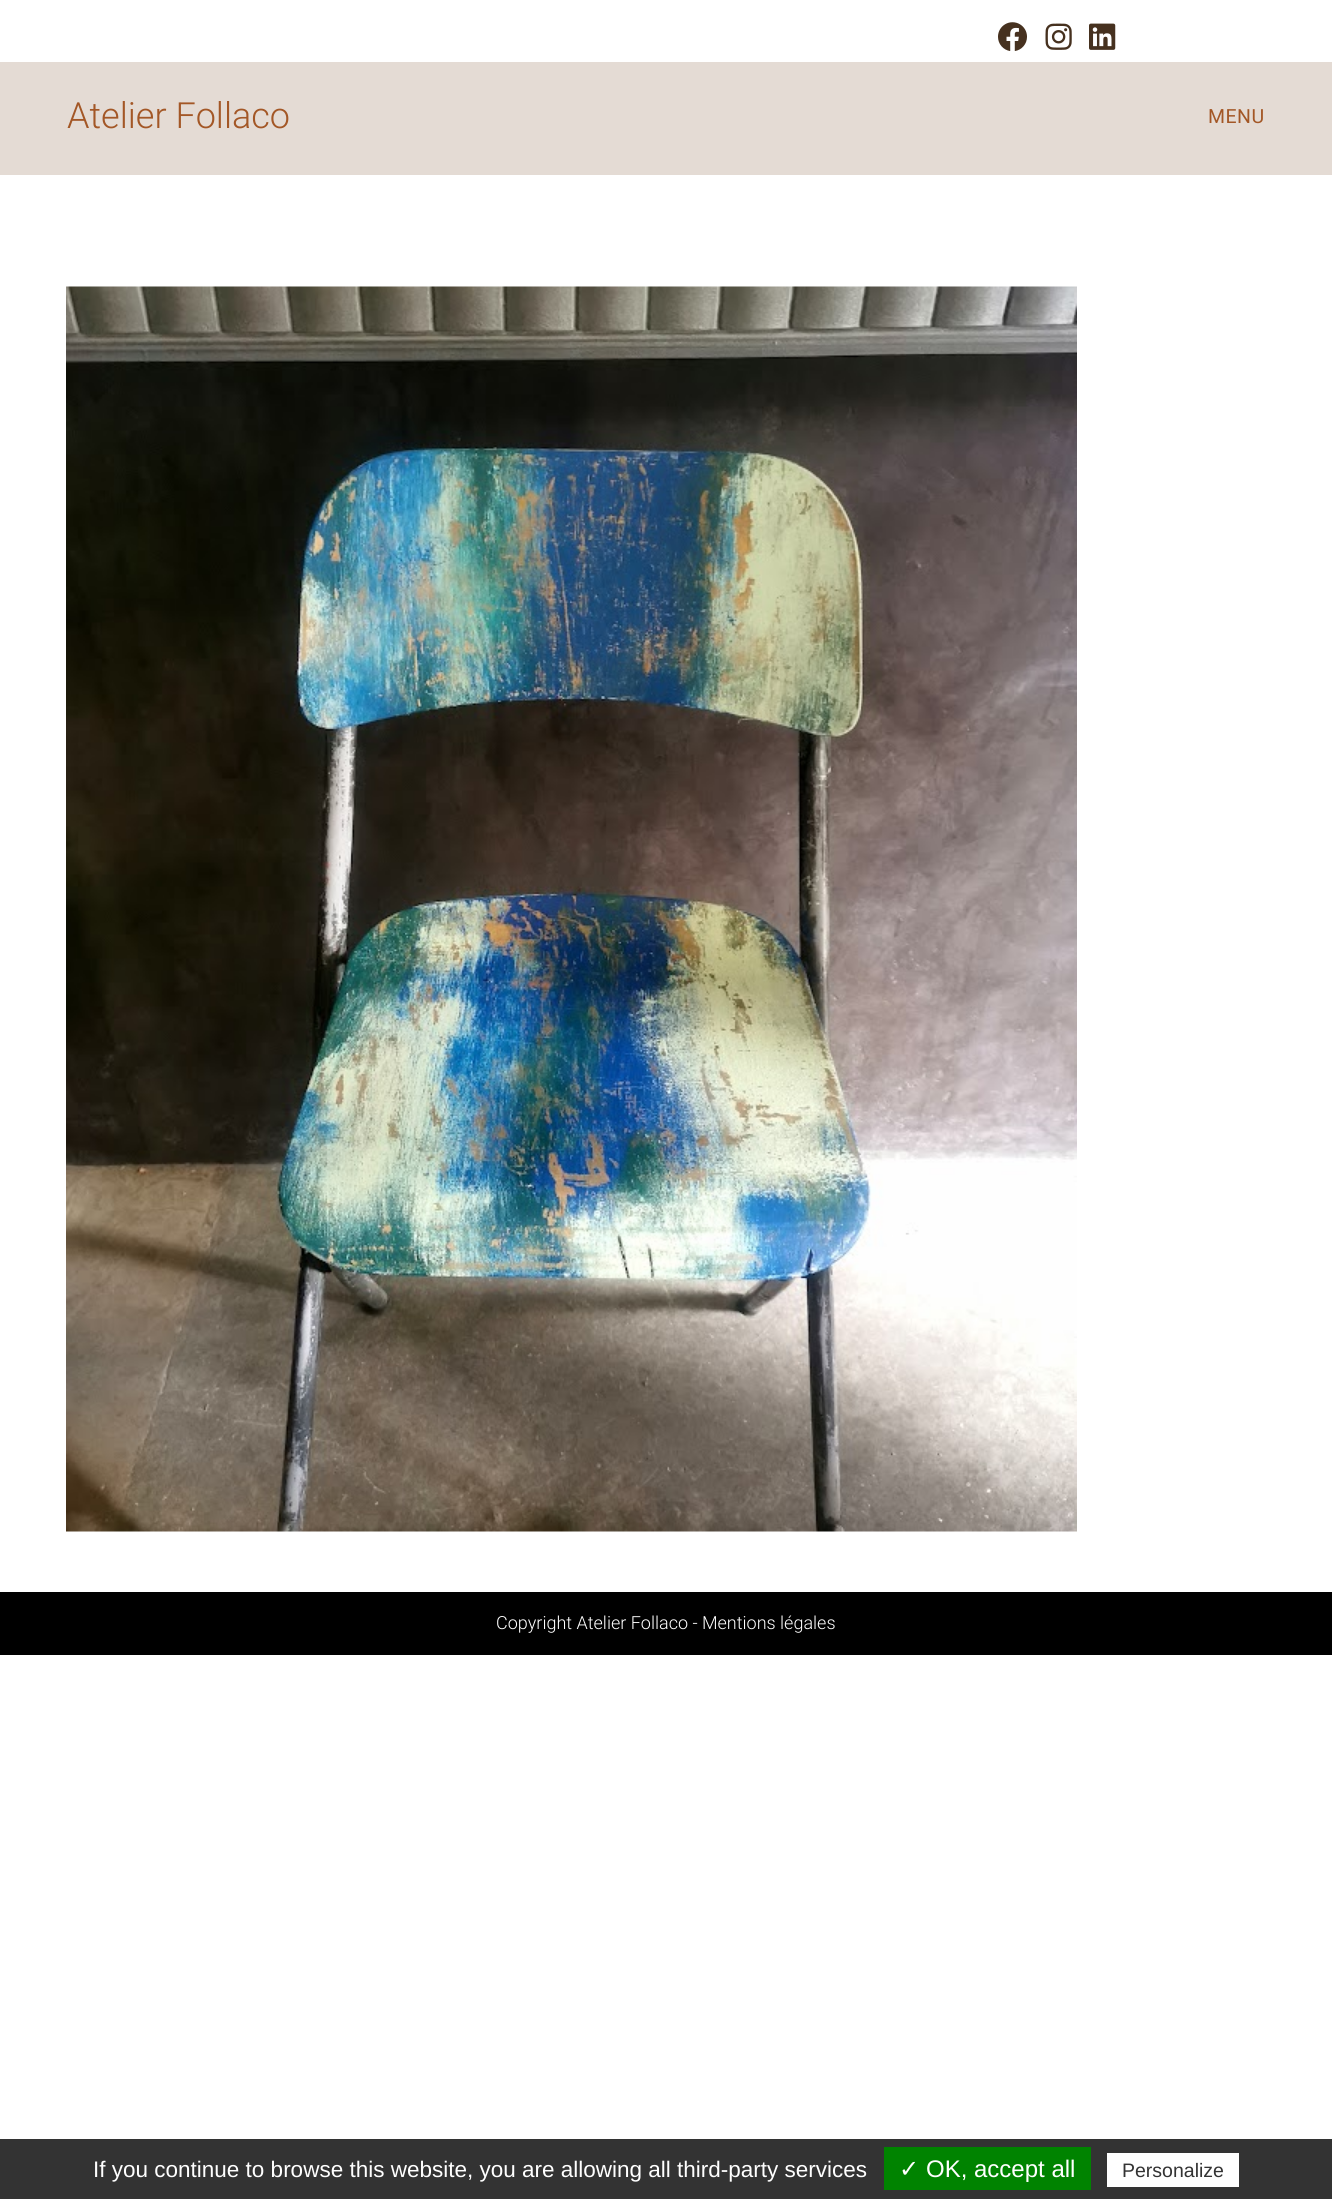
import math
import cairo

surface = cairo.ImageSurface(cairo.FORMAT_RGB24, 1332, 2199)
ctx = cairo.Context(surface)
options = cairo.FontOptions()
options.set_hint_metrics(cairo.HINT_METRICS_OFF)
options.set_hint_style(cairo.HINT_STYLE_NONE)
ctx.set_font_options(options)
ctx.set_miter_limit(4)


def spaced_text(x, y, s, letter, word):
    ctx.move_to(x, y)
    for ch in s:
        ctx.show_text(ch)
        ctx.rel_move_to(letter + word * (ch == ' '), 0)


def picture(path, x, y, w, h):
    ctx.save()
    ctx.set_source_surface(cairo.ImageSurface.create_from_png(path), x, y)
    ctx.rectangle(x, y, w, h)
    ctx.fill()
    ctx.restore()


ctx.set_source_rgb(1, 1, 1)
ctx.paint()
picture("img1.png", 998, 22, 29, 29)
picture("img2.png", 1045, 23, 27, 27)
picture("img3.png", 1089, 23, 27, 27)
ctx.set_source_rgb(0.894, 0.859, 0.831)
ctx.rectangle(0, 62, 1332, 113)
ctx.fill()
ctx.select_font_face("Roboto Light")
ctx.set_font_size(36)
ctx.set_source_rgb(0.639, 0.341, 0.149)
ctx.move_to(67, 128)
ctx.show_text("Atelier Follaco")
ctx.select_font_face("Roboto")
ctx.set_font_size(19.5)
spaced_text(1208, 123, "MENU", 0.5, 0)
picture("img4.png", 66, 286, 1011, 1246)
ctx.set_source_rgb(0, 0, 0)
ctx.rectangle(0, 1592, 1332, 63)
ctx.fill()
ctx.select_font_face("Roboto Light")
ctx.set_font_size(18)
ctx.set_source_rgb(1, 1, 1)
ctx.move_to(496, 1629)
ctx.show_text("Copyright Atelier Follaco - Mentions légales")
ctx.set_source_rgb(0.2, 0.2, 0.2)
ctx.rectangle(0, 2139, 1332, 60)
ctx.fill()
ctx.select_font_face("Liberation Sans")
ctx.set_font_size(22.5)
ctx.set_source_rgb(1, 1, 1)
ctx.move_to(93, 2177)
ctx.show_text("If you continue to browse this website, you are allowing all third-party services")
ctx.set_source_rgb(0, 0.514, 0)
ctx.rectangle(884, 2147, 207, 43)
ctx.fill()
ctx.select_font_face("DejaVu Sans")
ctx.set_font_size(24)
ctx.set_source_rgb(1, 1, 1)
ctx.move_to(899, 2177)
ctx.show_text("✓")
ctx.select_font_face("Liberation Sans")
ctx.move_to(926, 2177)
ctx.show_text("OK, accept all")
ctx.rectangle(1107, 2153, 132, 34)
ctx.fill()
ctx.set_font_size(19.5)
ctx.set_source_rgb(0.2, 0.2, 0.2)
ctx.move_to(1122, 2177)
ctx.show_text("Personalize")
surface.write_to_png("page.png")
